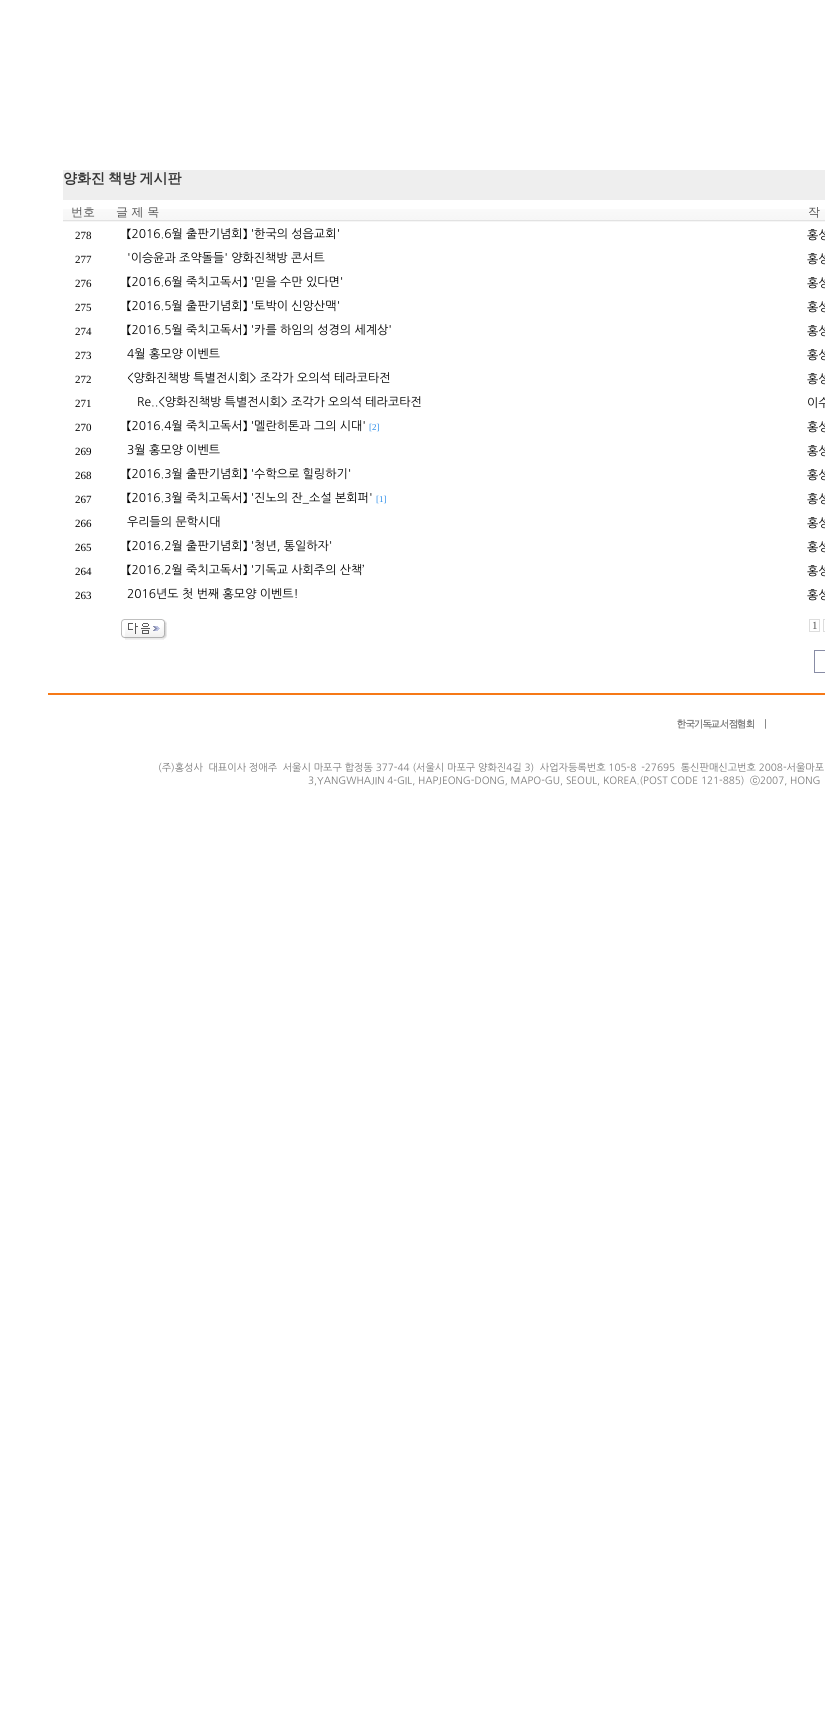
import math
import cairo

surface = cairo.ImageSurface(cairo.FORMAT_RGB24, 825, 1719)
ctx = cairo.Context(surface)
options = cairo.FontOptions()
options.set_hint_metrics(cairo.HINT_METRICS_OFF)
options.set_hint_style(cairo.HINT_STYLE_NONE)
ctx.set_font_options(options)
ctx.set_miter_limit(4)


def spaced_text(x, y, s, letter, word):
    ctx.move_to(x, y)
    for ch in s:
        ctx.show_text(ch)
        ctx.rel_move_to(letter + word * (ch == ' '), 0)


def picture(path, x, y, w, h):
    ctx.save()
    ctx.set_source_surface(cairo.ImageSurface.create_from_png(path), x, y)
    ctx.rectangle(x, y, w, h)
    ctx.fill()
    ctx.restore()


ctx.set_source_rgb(1, 1, 1)
ctx.paint()
ctx.set_source_rgb(0.933, 0.933, 0.933)
ctx.rectangle(63, 170, 762, 30)
ctx.fill()
ctx.select_font_face("WenQuanYi Zen Hei", cairo.FONT_SLANT_NORMAL, cairo.FONT_WEIGHT_BOLD)
ctx.set_font_size(14)
ctx.set_source_rgb(0.2, 0.2, 0.2)
spaced_text(63, 183, "양화진 책방 게시판", 0, -1)
picture("img1.png", 63, 209, 40, 13)
ctx.select_font_face("WenQuanYi Zen Hei Medium")
ctx.set_font_size(12)
ctx.set_source_rgb(0.333, 0.333, 0.333)
ctx.move_to(71, 216)
ctx.show_text("번호")
picture("img2.png", 103, 209, 3, 13)
picture("img3.png", 106, 209, 662, 13)
ctx.move_to(116, 216)
ctx.show_text("글 제 목")
picture("img4.png", 768, 209, 37, 13)
picture("img5.png", 805, 209, 20, 13)
ctx.move_to(808, 216)
ctx.show_text("작")
ctx.select_font_face("Liberation Serif")
ctx.set_font_size(11)
ctx.set_source_rgb(0, 0, 0)
ctx.move_to(75, 239)
ctx.show_text("278")
ctx.select_font_face("NanumGothic")
ctx.set_font_size(12)
ctx.move_to(127, 238)
ctx.show_text("【2016.6월 출판기념회】 '한국의 성읍교회'")
ctx.move_to(807, 239)
ctx.show_text("홍성")
ctx.select_font_face("Liberation Serif")
ctx.set_font_size(11)
ctx.move_to(75, 263)
ctx.show_text("277")
ctx.select_font_face("NanumGothic")
ctx.set_font_size(12)
ctx.move_to(127, 262)
ctx.show_text("'이승윤과 조약돌들' 양화진책방 콘서트")
ctx.move_to(807, 263)
ctx.show_text("홍성")
ctx.select_font_face("Liberation Serif")
ctx.set_font_size(11)
ctx.move_to(75, 287)
ctx.show_text("276")
ctx.select_font_face("NanumGothic")
ctx.set_font_size(12)
ctx.move_to(127, 286)
ctx.show_text("【2016.6월 죽치고독서】 '믿을 수만 있다면'")
ctx.move_to(807, 287)
ctx.show_text("홍성")
ctx.select_font_face("Liberation Serif")
ctx.set_font_size(11)
ctx.move_to(75, 311)
ctx.show_text("275")
ctx.select_font_face("NanumGothic")
ctx.set_font_size(12)
ctx.move_to(127, 310)
ctx.show_text("【2016.5월 출판기념회】 '토박이 신앙산맥'")
ctx.move_to(807, 311)
ctx.show_text("홍성")
ctx.select_font_face("Liberation Serif")
ctx.set_font_size(11)
ctx.move_to(75, 335)
ctx.show_text("274")
ctx.select_font_face("NanumGothic")
ctx.set_font_size(12)
ctx.move_to(127, 334)
ctx.show_text("【2016.5월 죽치고독서】 '카를 하임의 성경의 세계상'")
ctx.move_to(807, 335)
ctx.show_text("홍성")
ctx.select_font_face("Liberation Serif")
ctx.set_font_size(11)
ctx.move_to(75, 359)
ctx.show_text("273")
ctx.select_font_face("NanumGothic")
ctx.set_font_size(12)
ctx.move_to(127, 358)
ctx.show_text("4월 홍모양 이벤트")
ctx.move_to(807, 359)
ctx.show_text("홍성")
ctx.select_font_face("Liberation Serif")
ctx.set_font_size(11)
ctx.move_to(75, 383)
ctx.show_text("272")
ctx.select_font_face("NanumGothic")
ctx.set_font_size(12)
ctx.move_to(127, 382)
ctx.show_text("<양화진책방 특별전시회> 조각가 오의석 테라코타전")
ctx.move_to(807, 383)
ctx.show_text("홍성")
ctx.select_font_face("Liberation Serif")
ctx.set_font_size(11)
ctx.move_to(75, 407)
ctx.show_text("271")
ctx.select_font_face("NanumGothic")
ctx.set_font_size(12)
ctx.move_to(137, 406)
ctx.show_text("Re..<양화진책방 특별전시회> 조각가 오의석 테라코타전")
ctx.move_to(807, 407)
ctx.show_text("이수")
ctx.select_font_face("Liberation Serif")
ctx.set_font_size(11)
ctx.move_to(75, 431)
ctx.show_text("270")
ctx.select_font_face("NanumGothic")
ctx.set_font_size(12)
ctx.move_to(127, 430)
ctx.show_text("【2016.4월 죽치고독서】 '멜란히톤과 그의 시대'")
ctx.select_font_face("Liberation Serif")
ctx.set_font_size(9)
ctx.set_source_rgb(0.153, 0.545, 0.914)
ctx.move_to(369, 430)
ctx.show_text("[2]")
ctx.select_font_face("NanumGothic")
ctx.set_font_size(12)
ctx.set_source_rgb(0, 0, 0)
ctx.move_to(807, 431)
ctx.show_text("홍성")
ctx.select_font_face("Liberation Serif")
ctx.set_font_size(11)
ctx.move_to(75, 455)
ctx.show_text("269")
ctx.select_font_face("NanumGothic")
ctx.set_font_size(12)
ctx.move_to(127, 454)
ctx.show_text("3월 홍모양 이벤트")
ctx.move_to(807, 455)
ctx.show_text("홍성")
ctx.select_font_face("Liberation Serif")
ctx.set_font_size(11)
ctx.move_to(75, 479)
ctx.show_text("268")
ctx.select_font_face("NanumGothic")
ctx.set_font_size(12)
ctx.move_to(127, 478)
ctx.show_text("【2016.3월 출판기념회】 '수학으로 힐링하기'")
ctx.move_to(807, 479)
ctx.show_text("홍성")
ctx.select_font_face("Liberation Serif")
ctx.set_font_size(11)
ctx.move_to(75, 503)
ctx.show_text("267")
ctx.select_font_face("NanumGothic")
ctx.set_font_size(12)
ctx.move_to(127, 502)
ctx.show_text("【2016.3월 죽치고독서】 '진노의 잔_소설 본회퍼'")
ctx.select_font_face("Liberation Serif")
ctx.set_font_size(9)
ctx.set_source_rgb(0.153, 0.545, 0.914)
ctx.move_to(376, 502)
ctx.show_text("[1]")
ctx.select_font_face("NanumGothic")
ctx.set_font_size(12)
ctx.set_source_rgb(0, 0, 0)
ctx.move_to(807, 503)
ctx.show_text("홍성")
ctx.select_font_face("Liberation Serif")
ctx.set_font_size(11)
ctx.move_to(75, 527)
ctx.show_text("266")
ctx.select_font_face("NanumGothic")
ctx.set_font_size(12)
ctx.move_to(127, 526)
ctx.show_text("우리들의 문학시대")
ctx.move_to(807, 527)
ctx.show_text("홍성")
ctx.select_font_face("Liberation Serif")
ctx.set_font_size(11)
ctx.move_to(75, 551)
ctx.show_text("265")
ctx.select_font_face("NanumGothic")
ctx.set_font_size(12)
ctx.move_to(127, 550)
ctx.show_text("【2016.2월 출판기념회】 '청년, 통일하자'")
ctx.move_to(807, 551)
ctx.show_text("홍성")
ctx.select_font_face("Liberation Serif")
ctx.set_font_size(11)
ctx.move_to(75, 575)
ctx.show_text("264")
ctx.select_font_face("NanumGothic")
ctx.set_font_size(12)
ctx.move_to(127, 574)
ctx.show_text("【2016.2월 죽치고독서】 '기독교 사회주의 산책’")
ctx.move_to(807, 575)
ctx.show_text("홍성")
ctx.select_font_face("Liberation Serif")
ctx.set_font_size(11)
ctx.move_to(75, 599)
ctx.show_text("263")
ctx.select_font_face("NanumGothic")
ctx.set_font_size(12)
ctx.move_to(127, 598)
ctx.show_text("2016년도 첫 번째 홍모양 이벤트!")
ctx.move_to(807, 599)
ctx.show_text("홍성")
picture("img6.png", 121, 619, 46, 21)
ctx.rectangle(809.5, 619.5, 10, 12)
ctx.set_source_rgb(0.867, 0.867, 0.867)
ctx.set_line_width(1)
ctx.stroke()
ctx.select_font_face("Liberation Serif")
ctx.set_font_size(11)
ctx.set_source_rgb(0.333, 0.333, 0.333)
ctx.move_to(812, 629)
ctx.show_text("1")
ctx.rectangle(823.5, 619.5, 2, 12)
ctx.set_source_rgb(0.867, 0.867, 0.867)
ctx.stroke()
ctx.rectangle(814.5, 650.5, 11, 22)
ctx.set_source_rgb(0.533, 0.549, 0.647)
ctx.stroke()
ctx.set_source_rgb(0.961, 0.475, 0.09)
ctx.rectangle(48, 693, 777, 2)
ctx.fill()
picture("img7.png", 677, 719, 89, 10)
ctx.select_font_face("NanumGothic")
ctx.set_font_size(10)
ctx.set_source_rgb(0.467, 0.467, 0.467)
ctx.move_to(158, 771)
ctx.show_text("(주)홍성사  대표이사 정애주  서울시 마포구 합정동 377-44 (서울시 마포구 양화진4길 3)  사업자등록번호 105-8`-27695  통신판매신고번호 2008-서울마포")
ctx.move_to(308, 784)
ctx.show_text("3,YANGWHAJIN 4-GIL, HAPJEONG-DONG, MAPO-GU, SEOUL, KOREA.(POST CODE 121-885)")
ctx.select_font_face("WenQuanYi Zen Hei Medium")
ctx.move_to(750, 784)
ctx.show_text("ⓒ")
ctx.select_font_face("NanumGothic")
ctx.move_to(760, 784)
ctx.show_text("2007, HONG")
surface.write_to_png("page.png")
